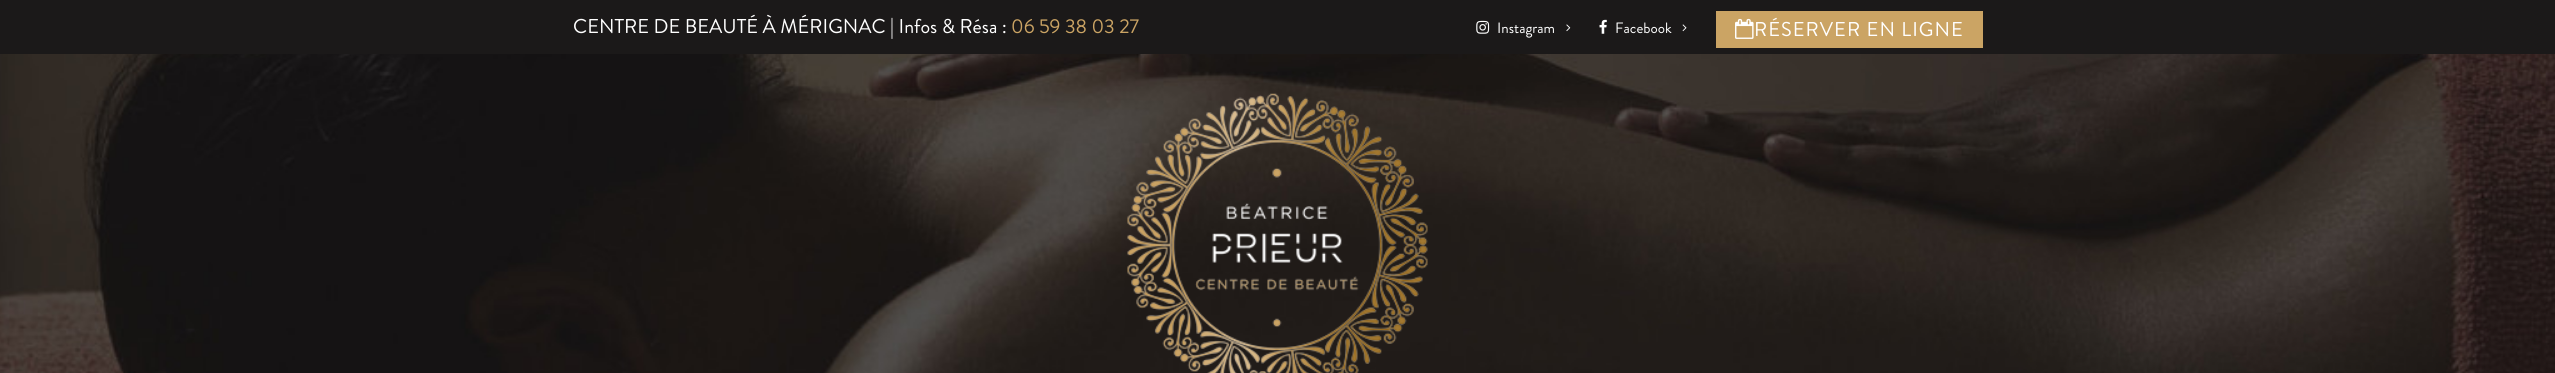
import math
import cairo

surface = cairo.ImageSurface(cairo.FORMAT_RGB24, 2555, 373)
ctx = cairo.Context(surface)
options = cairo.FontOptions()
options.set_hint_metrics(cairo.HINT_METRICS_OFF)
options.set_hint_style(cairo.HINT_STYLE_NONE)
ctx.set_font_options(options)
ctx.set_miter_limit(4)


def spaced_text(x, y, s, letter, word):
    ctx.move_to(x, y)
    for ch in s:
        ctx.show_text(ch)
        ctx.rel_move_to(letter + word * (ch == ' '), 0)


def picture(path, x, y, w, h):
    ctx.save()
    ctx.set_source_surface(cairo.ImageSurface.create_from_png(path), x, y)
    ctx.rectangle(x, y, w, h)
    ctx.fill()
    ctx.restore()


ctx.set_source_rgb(1, 1, 1)
ctx.paint()
ctx.set_source_rgb(0.106, 0.098, 0.098)
ctx.rectangle(0, 0, 2555, 54)
ctx.fill()
ctx.select_font_face("Brandon Grotesque")
ctx.set_font_size(20)
ctx.set_source_rgb(1, 1, 1)
ctx.move_to(573, 33)
ctx.show_text("CENTRE DE BEAUTÉ À MÉRIGNAC | Infos & Résa :")
ctx.set_source_rgb(0.796, 0.643, 0.392)
ctx.move_to(1011, 33)
ctx.show_text("06 59 38 03 27")
picture("img1.png", 1476, 20, 14, 14)
ctx.set_font_size(15)
ctx.set_source_rgb(1, 1, 1)
ctx.move_to(1497, 33)
ctx.show_text("Instagram")
picture("img2.png", 1566, 24, 5, 8)
picture("img3.png", 1599, 19, 8, 15)
ctx.move_to(1615, 33)
ctx.show_text("Facebook")
picture("img4.png", 1682, 24, 5, 8)
ctx.set_source_rgb(0.796, 0.643, 0.392)
ctx.rectangle(1716, 11, 267, 37)
ctx.fill()
picture("img5.png", 1735, 18, 19, 21)
ctx.set_font_size(20)
ctx.set_source_rgb(1, 1, 1)
spaced_text(1754, 36, "RÉSERVER EN LIGNE", 1, 0)
picture("img7.png", 0, 54, 2555, 319)
picture("img6.png", 1127, 93, 301, 280)
surface.write_to_png("page.png")
